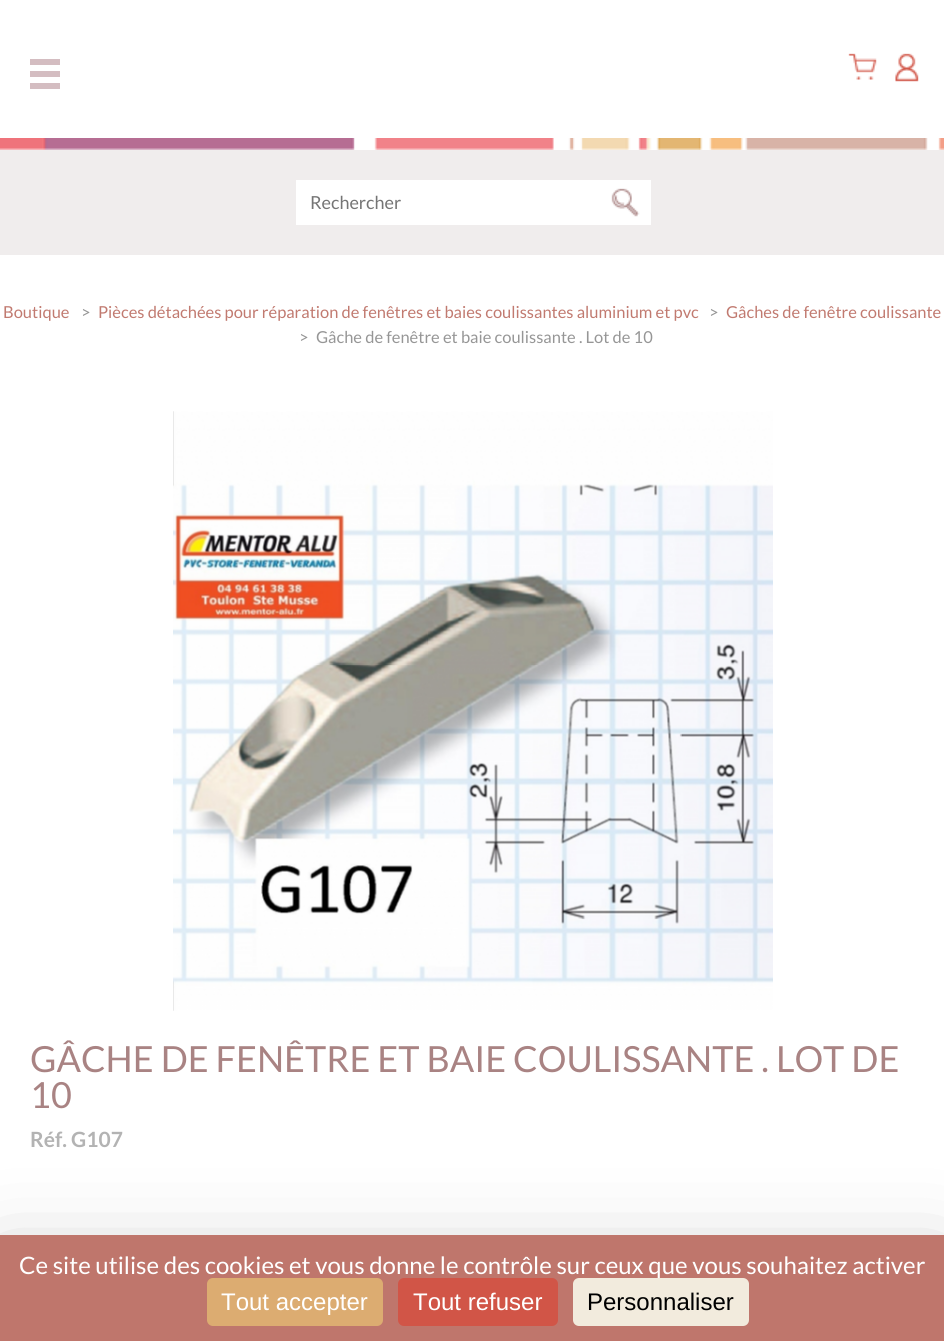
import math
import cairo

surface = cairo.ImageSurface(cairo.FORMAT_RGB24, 944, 1341)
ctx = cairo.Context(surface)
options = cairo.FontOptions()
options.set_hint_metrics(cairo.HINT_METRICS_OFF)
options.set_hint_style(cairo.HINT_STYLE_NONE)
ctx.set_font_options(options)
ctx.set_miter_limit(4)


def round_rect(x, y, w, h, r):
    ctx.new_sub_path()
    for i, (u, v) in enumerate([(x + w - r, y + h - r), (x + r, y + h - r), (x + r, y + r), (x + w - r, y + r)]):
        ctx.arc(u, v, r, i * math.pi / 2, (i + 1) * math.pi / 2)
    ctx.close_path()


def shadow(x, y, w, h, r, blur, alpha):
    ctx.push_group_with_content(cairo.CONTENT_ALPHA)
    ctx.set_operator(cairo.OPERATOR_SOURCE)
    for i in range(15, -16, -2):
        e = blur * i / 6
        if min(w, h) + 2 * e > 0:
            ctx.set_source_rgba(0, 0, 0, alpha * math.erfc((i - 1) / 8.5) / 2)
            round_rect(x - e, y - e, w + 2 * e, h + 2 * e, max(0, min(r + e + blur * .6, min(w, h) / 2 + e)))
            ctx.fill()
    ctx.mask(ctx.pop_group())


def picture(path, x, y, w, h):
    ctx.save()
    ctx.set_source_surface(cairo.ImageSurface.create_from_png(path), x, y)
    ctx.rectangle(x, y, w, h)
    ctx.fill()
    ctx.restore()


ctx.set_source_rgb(1, 1, 1)
ctx.paint()
picture("img1.png", 0, 138, 944, 12)
ctx.set_source_rgb(0.831, 0.741, 0.757)
ctx.rectangle(30, 59, 30, 6)
ctx.fill()
ctx.rectangle(30, 71, 30, 6)
ctx.fill()
ctx.rectangle(30, 83, 30, 6)
ctx.fill()
picture("img2.png", 848, 53, 29, 27)
picture("img3.png", 895, 53, 24, 29)
ctx.set_source_rgb(0.941, 0.929, 0.929)
ctx.rectangle(0, 150, 944, 105)
ctx.fill()
ctx.set_source_rgb(1, 1, 1)
ctx.rectangle(296, 180, 355, 45)
ctx.fill()
ctx.select_font_face("Lato")
ctx.set_font_size(18)
ctx.set_source_rgb(0.459, 0.459, 0.459)
ctx.move_to(310, 209)
ctx.show_text("Rechercher")
picture("img4.png", 611, 188, 29, 29)
ctx.set_font_size(16.5)
ctx.set_source_rgb(0.757, 0.478, 0.439)
ctx.move_to(3, 318)
ctx.show_text("Boutique")
ctx.set_source_rgb(0.588, 0.588, 0.588)
ctx.move_to(81, 318)
ctx.show_text(">")
ctx.set_source_rgb(0.757, 0.478, 0.439)
ctx.move_to(98, 318)
ctx.show_text("Pièces détachées pour réparation de fenêtres et baies coulissantes aluminium et pvc")
ctx.set_source_rgb(0.588, 0.588, 0.588)
ctx.move_to(709, 318)
ctx.show_text(">")
ctx.set_source_rgb(0.757, 0.478, 0.439)
ctx.move_to(726, 318)
ctx.show_text("Gâches de fenêtre coulissante")
ctx.set_source_rgb(0.588, 0.588, 0.588)
ctx.move_to(299, 343)
ctx.show_text(">")
ctx.move_to(316, 343)
ctx.show_text("Gâche de fenêtre et baie coulissante . Lot de 10")
picture("img5.png", 173, 411, 600, 600)
ctx.set_font_size(36)
ctx.set_source_rgb(0.663, 0.514, 0.514)
ctx.move_to(30, 1072)
ctx.show_text("GÂCHE DE FENÊTRE ET BAIE COULISSANTE . LOT DE")
ctx.move_to(30, 1108)
ctx.show_text("10")
ctx.select_font_face("Lato", cairo.FONT_SLANT_NORMAL, cairo.FONT_WEIGHT_BOLD)
ctx.set_font_size(21)
ctx.set_source_rgb(0.702, 0.702, 0.702)
ctx.move_to(30, 1147)
ctx.show_text("Réf. G107")
ctx.set_source_rgb(0, 0, 0)
shadow(0, 1265, 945, 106, 0, 45, 0.25)
ctx.set_source_rgb(0.749, 0.463, 0.424)
ctx.rectangle(0, 1235, 944, 106)
ctx.fill()
ctx.select_font_face("Lato")
ctx.set_font_size(24)
ctx.set_source_rgb(1, 1, 1)
ctx.move_to(19, 1274)
ctx.show_text("Ce site utilise des cookies et vous donne le contrôle sur ceux que vous souhaitez activer")
ctx.set_source_rgb(0.863, 0.675, 0.443)
round_rect(207, 1278, 176, 48, 6)
ctx.fill()
ctx.select_font_face("Liberation Sans")
ctx.set_source_rgb(1, 1, 1)
ctx.move_to(221, 1310)
ctx.show_text("Tout accepter")
ctx.set_source_rgb(0.82, 0.333, 0.278)
round_rect(398, 1278, 160, 48, 6)
ctx.fill()
ctx.set_source_rgb(1, 1, 1)
ctx.move_to(413, 1310)
ctx.show_text("Tout refuser")
ctx.set_source_rgb(0.949, 0.918, 0.867)
round_rect(573, 1278, 176, 48, 6)
ctx.fill()
ctx.set_source_rgb(0, 0, 0)
ctx.move_to(587, 1310)
ctx.show_text("Personnaliser")
surface.write_to_png("page.png")
